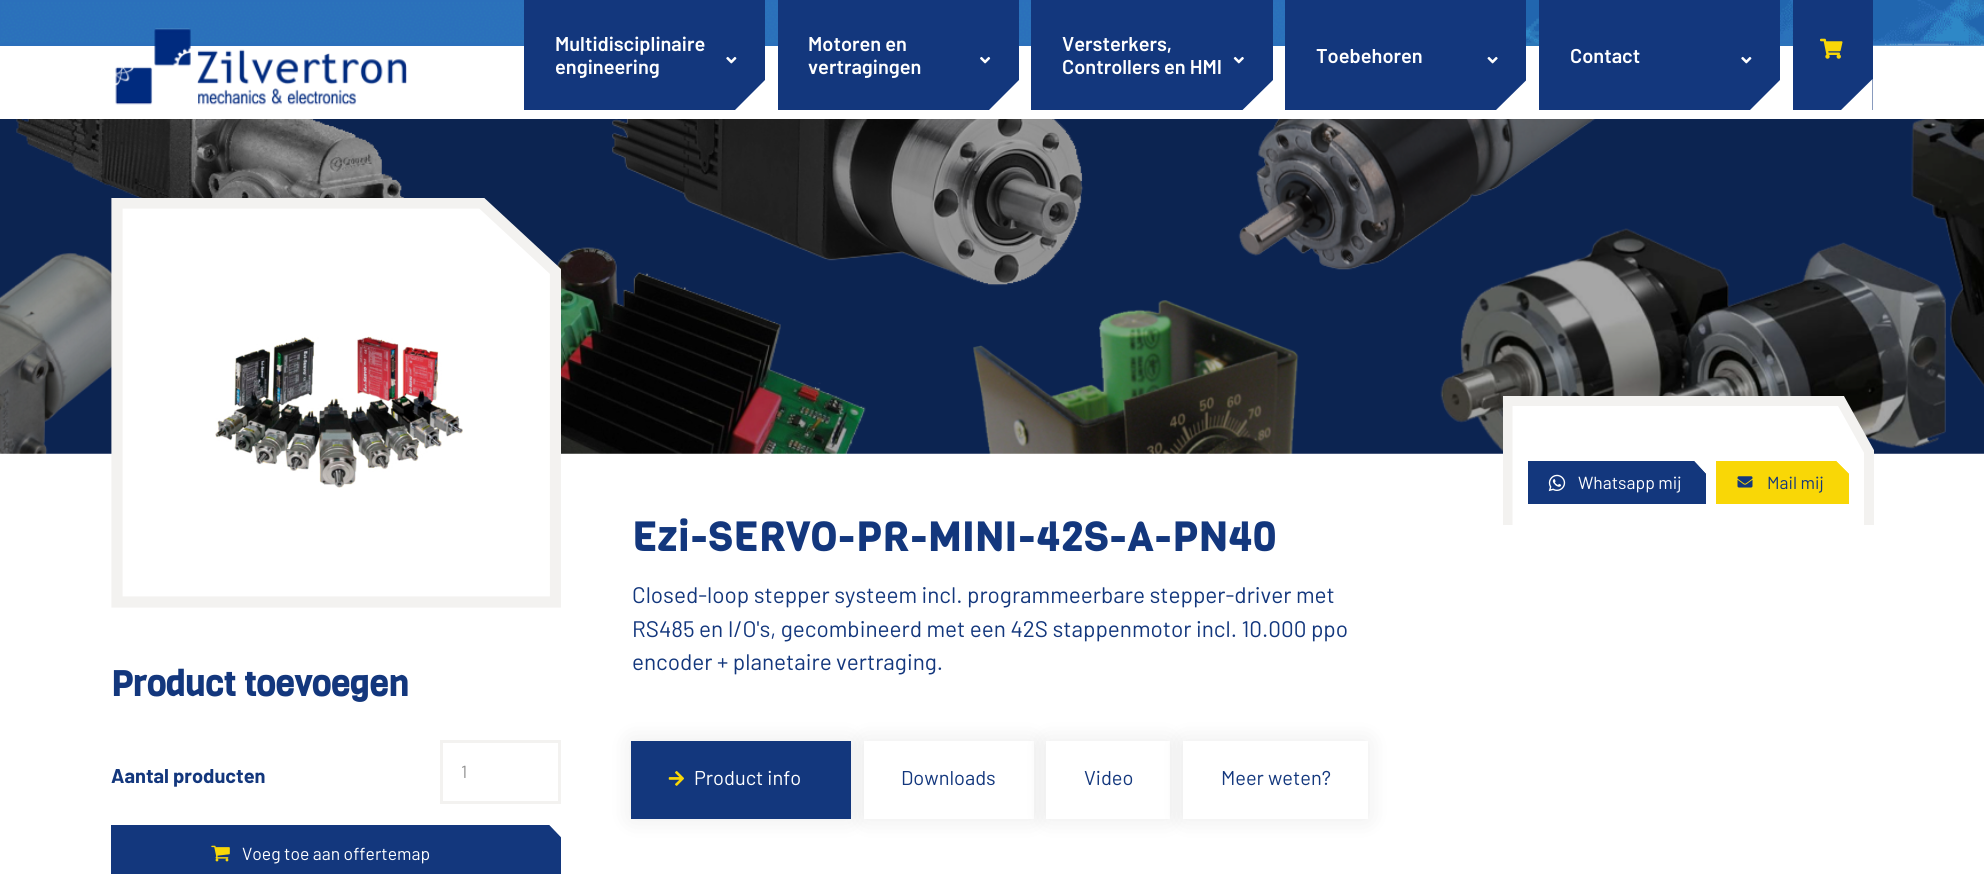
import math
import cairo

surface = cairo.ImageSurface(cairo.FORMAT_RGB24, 1984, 874)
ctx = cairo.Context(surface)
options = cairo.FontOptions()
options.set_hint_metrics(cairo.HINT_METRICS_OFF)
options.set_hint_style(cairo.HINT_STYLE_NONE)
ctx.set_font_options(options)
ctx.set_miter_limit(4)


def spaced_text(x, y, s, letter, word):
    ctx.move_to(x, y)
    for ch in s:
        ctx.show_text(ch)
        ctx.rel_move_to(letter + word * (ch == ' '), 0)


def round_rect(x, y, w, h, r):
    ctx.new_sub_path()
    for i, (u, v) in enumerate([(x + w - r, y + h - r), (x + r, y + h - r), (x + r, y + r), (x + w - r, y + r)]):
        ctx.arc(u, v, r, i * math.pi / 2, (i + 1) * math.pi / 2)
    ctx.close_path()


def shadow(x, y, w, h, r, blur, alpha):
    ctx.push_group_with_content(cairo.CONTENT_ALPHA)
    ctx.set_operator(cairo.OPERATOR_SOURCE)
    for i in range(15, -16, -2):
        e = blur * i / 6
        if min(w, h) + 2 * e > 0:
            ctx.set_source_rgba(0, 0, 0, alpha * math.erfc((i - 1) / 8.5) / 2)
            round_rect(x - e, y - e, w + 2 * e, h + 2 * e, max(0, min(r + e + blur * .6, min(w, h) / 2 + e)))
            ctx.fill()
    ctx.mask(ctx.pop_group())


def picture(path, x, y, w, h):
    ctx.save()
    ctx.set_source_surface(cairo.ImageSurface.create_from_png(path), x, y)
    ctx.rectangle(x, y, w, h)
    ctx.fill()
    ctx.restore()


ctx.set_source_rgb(1, 1, 1)
ctx.paint()
picture("img1.png", 0, 0, 1984, 46)
picture("img2.png", 115, 28, 292, 77)
ctx.set_source_rgb(0.075, 0.216, 0.49)
ctx.rectangle(524, 0, 241, 110)
ctx.fill()
ctx.select_font_face("Barlow SemiBold")
ctx.set_font_size(20)
ctx.set_source_rgb(1, 1, 1)
ctx.move_to(555, 51)
ctx.show_text("Multidisciplinaire")
ctx.move_to(555, 74)
ctx.show_text("engineering")
picture("img3.png", 726, 56, 11, 8)
ctx.new_path()
ctx.move_to(766, 79)
ctx.line_to(766, 110)
ctx.line_to(735, 110)
ctx.close_path()
ctx.fill()
ctx.set_source_rgb(0.075, 0.216, 0.49)
ctx.rectangle(778, 0, 241, 110)
ctx.fill()
ctx.set_source_rgb(1, 1, 1)
ctx.move_to(808, 51)
ctx.show_text("Motoren en")
ctx.move_to(808, 74)
ctx.show_text("vertragingen")
picture("img4.png", 980, 56, 11, 8)
ctx.new_path()
ctx.move_to(1020, 79)
ctx.line_to(1020, 110)
ctx.line_to(989, 110)
ctx.close_path()
ctx.fill()
ctx.set_source_rgb(0.075, 0.216, 0.49)
ctx.rectangle(1031, 0, 242, 110)
ctx.fill()
ctx.set_source_rgb(1, 1, 1)
ctx.move_to(1062, 51)
ctx.show_text("Versterkers,")
ctx.move_to(1062, 74)
ctx.show_text("Controllers en HMI")
picture("img5.png", 1233, 56, 11, 8)
ctx.new_path()
ctx.move_to(1274, 79)
ctx.line_to(1274, 110)
ctx.line_to(1242.5, 110)
ctx.close_path()
ctx.fill()
ctx.set_source_rgb(0.075, 0.216, 0.49)
ctx.rectangle(1285, 0, 241, 110)
ctx.fill()
ctx.set_source_rgb(1, 1, 1)
ctx.move_to(1316, 63)
ctx.show_text("Toebehoren")
picture("img6.png", 1487, 56, 11, 8)
ctx.new_path()
ctx.move_to(1527.5, 79)
ctx.line_to(1527.5, 110)
ctx.line_to(1496, 110)
ctx.close_path()
ctx.fill()
ctx.set_source_rgb(0.075, 0.216, 0.49)
ctx.rectangle(1539, 0, 241, 110)
ctx.fill()
ctx.set_source_rgb(1, 1, 1)
ctx.move_to(1570, 63)
ctx.show_text("Contact")
picture("img3.png", 1741, 56, 11, 8)
ctx.new_path()
ctx.move_to(1781, 79)
ctx.line_to(1781, 110)
ctx.line_to(1750, 110)
ctx.close_path()
ctx.fill()
ctx.set_source_rgb(0.075, 0.216, 0.49)
ctx.rectangle(1793, 0, 80, 110)
ctx.fill()
picture("img7.png", 1820, 38, 23, 21)
ctx.set_source_rgb(1, 1, 1)
ctx.new_path()
ctx.move_to(1872.5, 79)
ctx.line_to(1872.5, 110)
ctx.line_to(1841, 110)
ctx.close_path()
ctx.fill()
picture("img8.png", 0, 119, 1984, 335)
ctx.set_fill_rule(cairo.FILL_RULE_EVEN_ODD)
ctx.new_path()
ctx.move_to(117, 203)
ctx.line_to(117, 602)
ctx.line_to(556, 602)
ctx.line_to(556, 272)
ctx.line_to(481, 203)
ctx.close_path()
ctx.fill()
ctx.save()
ctx.set_fill_rule(cairo.FILL_RULE_WINDING)
ctx.rectangle(111, 198, 450, 410)
ctx.clip()
ctx.new_path()
ctx.move_to(117, 203)
ctx.line_to(117, 602)
ctx.line_to(555.5, 602)
ctx.line_to(555.5, 271.5)
ctx.line_to(481.5, 203)
ctx.close_path()
ctx.set_source_rgb(0.953, 0.949, 0.941)
ctx.set_line_width(11.2)
ctx.stroke()
ctx.restore()
picture("img9.png", 215, 336, 248, 152)
ctx.save()
ctx.set_fill_rule(cairo.FILL_RULE_WINDING)
ctx.rectangle(1503, 396, 371, 129)
ctx.clip()
ctx.set_fill_rule(cairo.FILL_RULE_EVEN_ODD)
ctx.new_path()
ctx.move_to(1508, 401)
ctx.line_to(1508, 656)
ctx.line_to(1869, 656)
ctx.line_to(1869, 452)
ctx.line_to(1841, 401)
ctx.close_path()
ctx.fill()
ctx.new_path()
ctx.move_to(1507.5, 401)
ctx.line_to(1507.5, 656)
ctx.line_to(1869, 656)
ctx.line_to(1869, 451.5)
ctx.line_to(1841, 401)
ctx.close_path()
ctx.set_source_rgb(0.953, 0.949, 0.941)
ctx.set_line_width(10)
ctx.stroke()
ctx.restore()
ctx.set_source_rgb(0.075, 0.216, 0.49)
ctx.rectangle(1528, 461, 178, 43)
ctx.fill()
ctx.set_source_rgb(1, 1, 1)
ctx.set_fill_rule(cairo.FILL_RULE_WINDING)
ctx.new_path()
ctx.move_to(1694, 461)
ctx.line_to(1706, 461)
ctx.line_to(1706, 474)
ctx.close_path()
ctx.fill()
ctx.set_source_rgb(0.075, 0.216, 0.49)
ctx.new_path()
ctx.move_to(1694, 474)
ctx.line_to(1694, 461)
ctx.line_to(1706, 474)
ctx.close_path()
ctx.fill()
picture("img10.png", 1548, 474, 18, 18)
ctx.select_font_face("Barlow")
ctx.set_font_size(17.5)
ctx.set_source_rgb(1, 1, 1)
ctx.move_to(1578, 489)
ctx.show_text("Whatsapp mij")
ctx.set_source_rgb(0.973, 0.843, 0.027)
ctx.rectangle(1716, 461, 133, 43)
ctx.fill()
ctx.set_source_rgb(1, 1, 1)
ctx.new_path()
ctx.move_to(1836, 461)
ctx.line_to(1849, 461)
ctx.line_to(1849, 474)
ctx.close_path()
ctx.fill()
ctx.set_source_rgb(0.973, 0.843, 0.027)
ctx.new_path()
ctx.move_to(1836, 474)
ctx.line_to(1836, 461)
ctx.line_to(1849, 474)
ctx.close_path()
ctx.fill()
picture("img11.png", 1737, 476, 16, 12)
ctx.set_source_rgb(0.075, 0.216, 0.49)
ctx.move_to(1767, 489)
ctx.show_text("Mail mij")
ctx.select_font_face("Viga", cairo.FONT_SLANT_NORMAL, cairo.FONT_WEIGHT_BOLD)
ctx.set_font_size(35)
ctx.move_to(111, 696)
ctx.show_text("Product toevoegen")
ctx.select_font_face("Barlow", cairo.FONT_SLANT_NORMAL, cairo.FONT_WEIGHT_BOLD)
ctx.set_font_size(20)
ctx.move_to(111, 783)
ctx.show_text("Aantal producten")
ctx.rectangle(441.5, 741.5, 118, 61)
ctx.set_source_rgb(0.953, 0.949, 0.941)
ctx.set_line_width(3)
ctx.stroke()
ctx.select_font_face("Barlow")
ctx.set_font_size(17.5)
ctx.set_source_rgb(0.569, 0.569, 0.569)
ctx.move_to(461, 778)
ctx.show_text("1")
ctx.set_source_rgb(0.075, 0.216, 0.49)
ctx.rectangle(111, 825, 450, 49)
ctx.fill()
ctx.set_source_rgb(1, 1, 1)
ctx.new_path()
ctx.move_to(549, 825)
ctx.line_to(561, 825)
ctx.line_to(561, 837.5)
ctx.close_path()
ctx.fill()
ctx.set_source_rgb(0.075, 0.216, 0.49)
ctx.new_path()
ctx.move_to(549, 837.5)
ctx.line_to(549, 825)
ctx.line_to(561, 837.5)
ctx.close_path()
ctx.fill()
picture("img12.png", 211, 845, 19, 17)
ctx.set_source_rgb(1, 1, 1)
ctx.move_to(242, 860)
ctx.show_text("Voeg toe aan offertemap")
ctx.select_font_face("Viga", cairo.FONT_SLANT_NORMAL, cairo.FONT_WEIGHT_BOLD)
ctx.set_font_size(40)
ctx.set_source_rgb(0.075, 0.216, 0.49)
spaced_text(632, 551, "Ezi-SERVO-PR-MINI-42S-A-PN40", 1.25, 0)
ctx.select_font_face("Barlow")
ctx.set_font_size(22.5)
ctx.move_to(632, 603)
ctx.show_text("Closed-loop stepper systeem incl. programmeerbare stepper-driver met")
ctx.move_to(632, 637)
ctx.show_text("RS485 en I/O's, gecombineerd met een 42S stappenmotor incl. 10.000 ppo")
ctx.move_to(632, 670)
ctx.show_text("encoder + planetaire vertraging.")
ctx.set_source_rgb(0, 0, 0)
shadow(631, 741, 220, 78, 0, 12.5, 0.08)
ctx.set_source_rgb(0.075, 0.216, 0.49)
ctx.rectangle(631, 741, 220, 78)
ctx.fill()
picture("img13.png", 668, 771, 16, 15)
ctx.set_font_size(20)
ctx.set_source_rgb(1, 1, 1)
ctx.move_to(694, 785)
ctx.show_text("Product info")
ctx.set_source_rgb(0, 0, 0)
shadow(864, 741, 170, 78, 0, 12.5, 0.08)
ctx.set_source_rgb(1, 1, 1)
ctx.rectangle(864, 741, 170, 78)
ctx.fill()
ctx.set_source_rgb(0.075, 0.216, 0.49)
ctx.move_to(901, 785)
ctx.show_text("Downloads")
ctx.set_source_rgb(0, 0, 0)
shadow(1046, 741, 124, 78, 0, 12.5, 0.08)
ctx.set_source_rgb(1, 1, 1)
ctx.rectangle(1046, 741, 124, 78)
ctx.fill()
ctx.set_source_rgb(0.075, 0.216, 0.49)
ctx.move_to(1084, 785)
ctx.show_text("Video")
ctx.set_source_rgb(0, 0, 0)
shadow(1183, 741, 185, 78, 0, 12.5, 0.08)
ctx.set_source_rgb(1, 1, 1)
ctx.rectangle(1183, 741, 185, 78)
ctx.fill()
ctx.set_source_rgb(0.075, 0.216, 0.49)
ctx.move_to(1221, 785)
ctx.show_text("Meer weten?")
surface.write_to_png("page.png")
